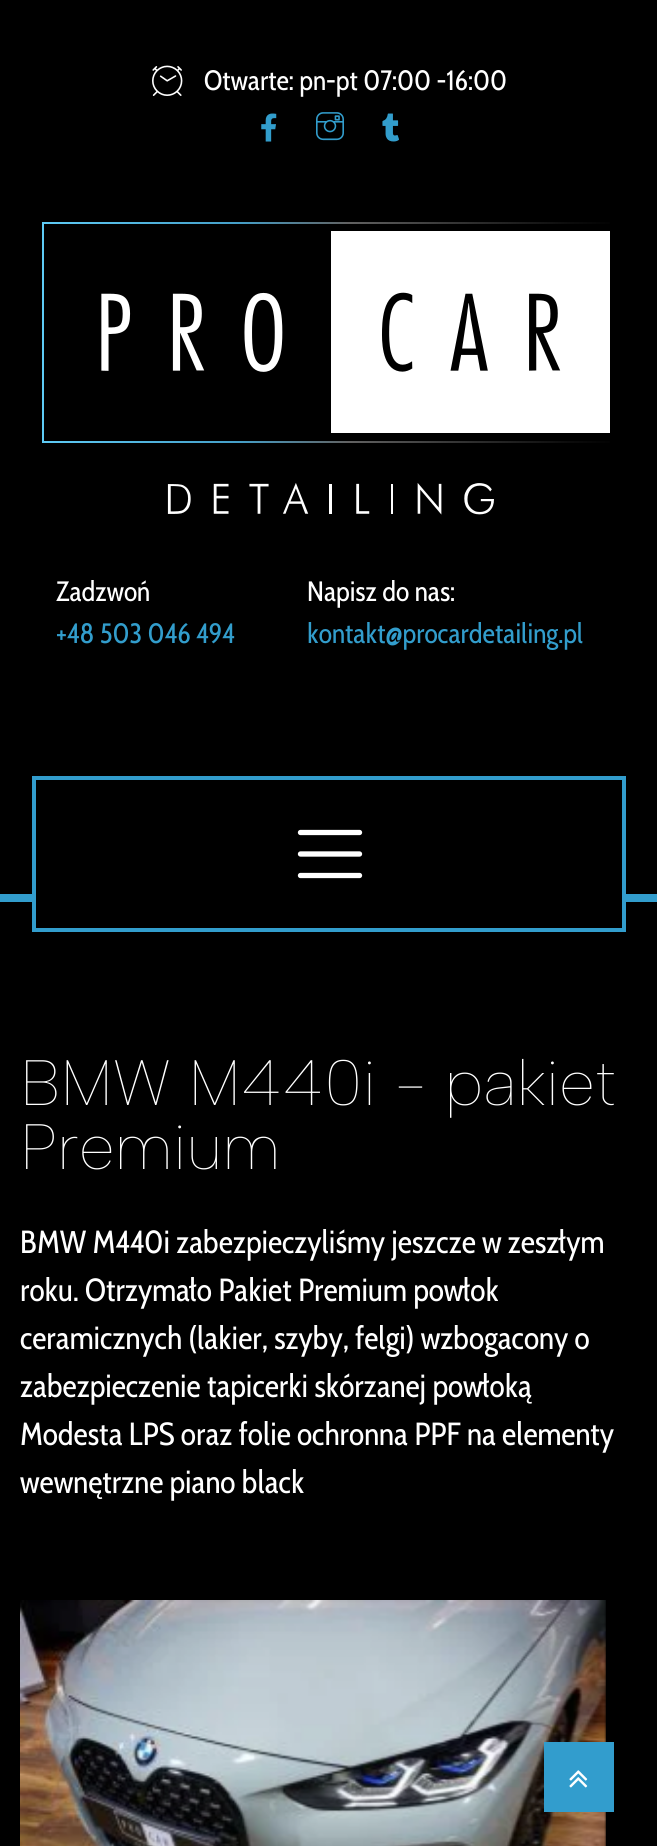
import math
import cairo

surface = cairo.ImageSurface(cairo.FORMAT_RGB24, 657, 1846)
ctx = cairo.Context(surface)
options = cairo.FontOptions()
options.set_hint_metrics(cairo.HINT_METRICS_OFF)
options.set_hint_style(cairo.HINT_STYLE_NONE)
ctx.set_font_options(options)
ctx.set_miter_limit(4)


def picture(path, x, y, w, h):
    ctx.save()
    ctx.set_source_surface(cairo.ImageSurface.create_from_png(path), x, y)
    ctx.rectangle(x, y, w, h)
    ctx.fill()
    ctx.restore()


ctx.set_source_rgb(0, 0, 0)
ctx.paint()
picture("img1.png", 152, 65, 31, 31)
ctx.select_font_face("Cabin Condensed")
ctx.set_font_size(28)
ctx.set_source_rgb(1, 1, 1)
ctx.move_to(204, 90)
ctx.show_text("Otwarte: pn-pt 07:00 -16:00")
picture("img2.png", 261, 113, 16, 29)
picture("img3.png", 316, 112, 28, 29)
picture("img4.png", 382, 113, 17, 29)
picture("img5.png", 42, 222, 568, 293)
ctx.move_to(56, 601)
ctx.show_text("Zadzwoń")
ctx.set_source_rgb(0.196, 0.616, 0.8)
ctx.move_to(56, 643)
ctx.show_text("+48 503 046 494")
ctx.set_source_rgb(1, 1, 1)
ctx.move_to(307, 601)
ctx.show_text("Napisz do nas:")
ctx.set_source_rgb(0.196, 0.616, 0.8)
ctx.move_to(307, 643)
ctx.show_text("kontakt@procardetailing.pl")
ctx.set_source_rgb(0.196, 0.616, 0.804)
ctx.rectangle(0, 894, 657, 8)
ctx.fill()
ctx.set_source_rgb(0, 0, 0)
ctx.rectangle(36, 894, 586, 8)
ctx.fill()
ctx.rectangle(34, 778, 590, 152)
ctx.set_source_rgb(0.196, 0.616, 0.804)
ctx.set_line_width(4)
ctx.stroke()
ctx.new_path()
ctx.move_to(300.5, 832.5)
ctx.line_to(359.5, 832.5)
ctx.move_to(300.5, 854)
ctx.line_to(359.5, 854)
ctx.move_to(300.5, 875.5)
ctx.line_to(359.5, 875.5)
ctx.set_source_rgb(1, 1, 1)
ctx.set_line_width(5.3)
ctx.set_line_cap(cairo.LINE_CAP_ROUND)
ctx.stroke()
ctx.select_font_face("Albert Sans Thin")
ctx.set_font_size(64)
ctx.move_to(20, 1105)
ctx.show_text("BMW M440i - pakiet")
ctx.move_to(20, 1169)
ctx.show_text("Premium")
ctx.select_font_face("Cabin Condensed")
ctx.set_font_size(32)
ctx.move_to(20, 1253)
ctx.show_text("BMW M440i zabezpieczyliśmy jeszcze w zeszłym")
ctx.move_to(20, 1301)
ctx.show_text("roku. Otrzymało Pakiet Premium powłok")
ctx.move_to(20, 1349)
ctx.show_text("ceramicznych (lakier, szyby, felgi) wzbogacony o")
ctx.move_to(20, 1397)
ctx.show_text("zabezpieczenie tapicerki skórzanej powłoką")
ctx.move_to(20, 1445)
ctx.show_text("Modesta LPS oraz folie ochronna PPF na elementy")
ctx.move_to(20, 1493)
ctx.show_text("wewnętrzne piano black")
picture("img6.png", 20, 1600, 586, 246)
ctx.set_source_rgb(0.196, 0.616, 0.804)
ctx.rectangle(544, 1742, 70, 70)
ctx.fill()
picture("img7.png", 569, 1770, 19, 18)
surface.write_to_png("page.png")
